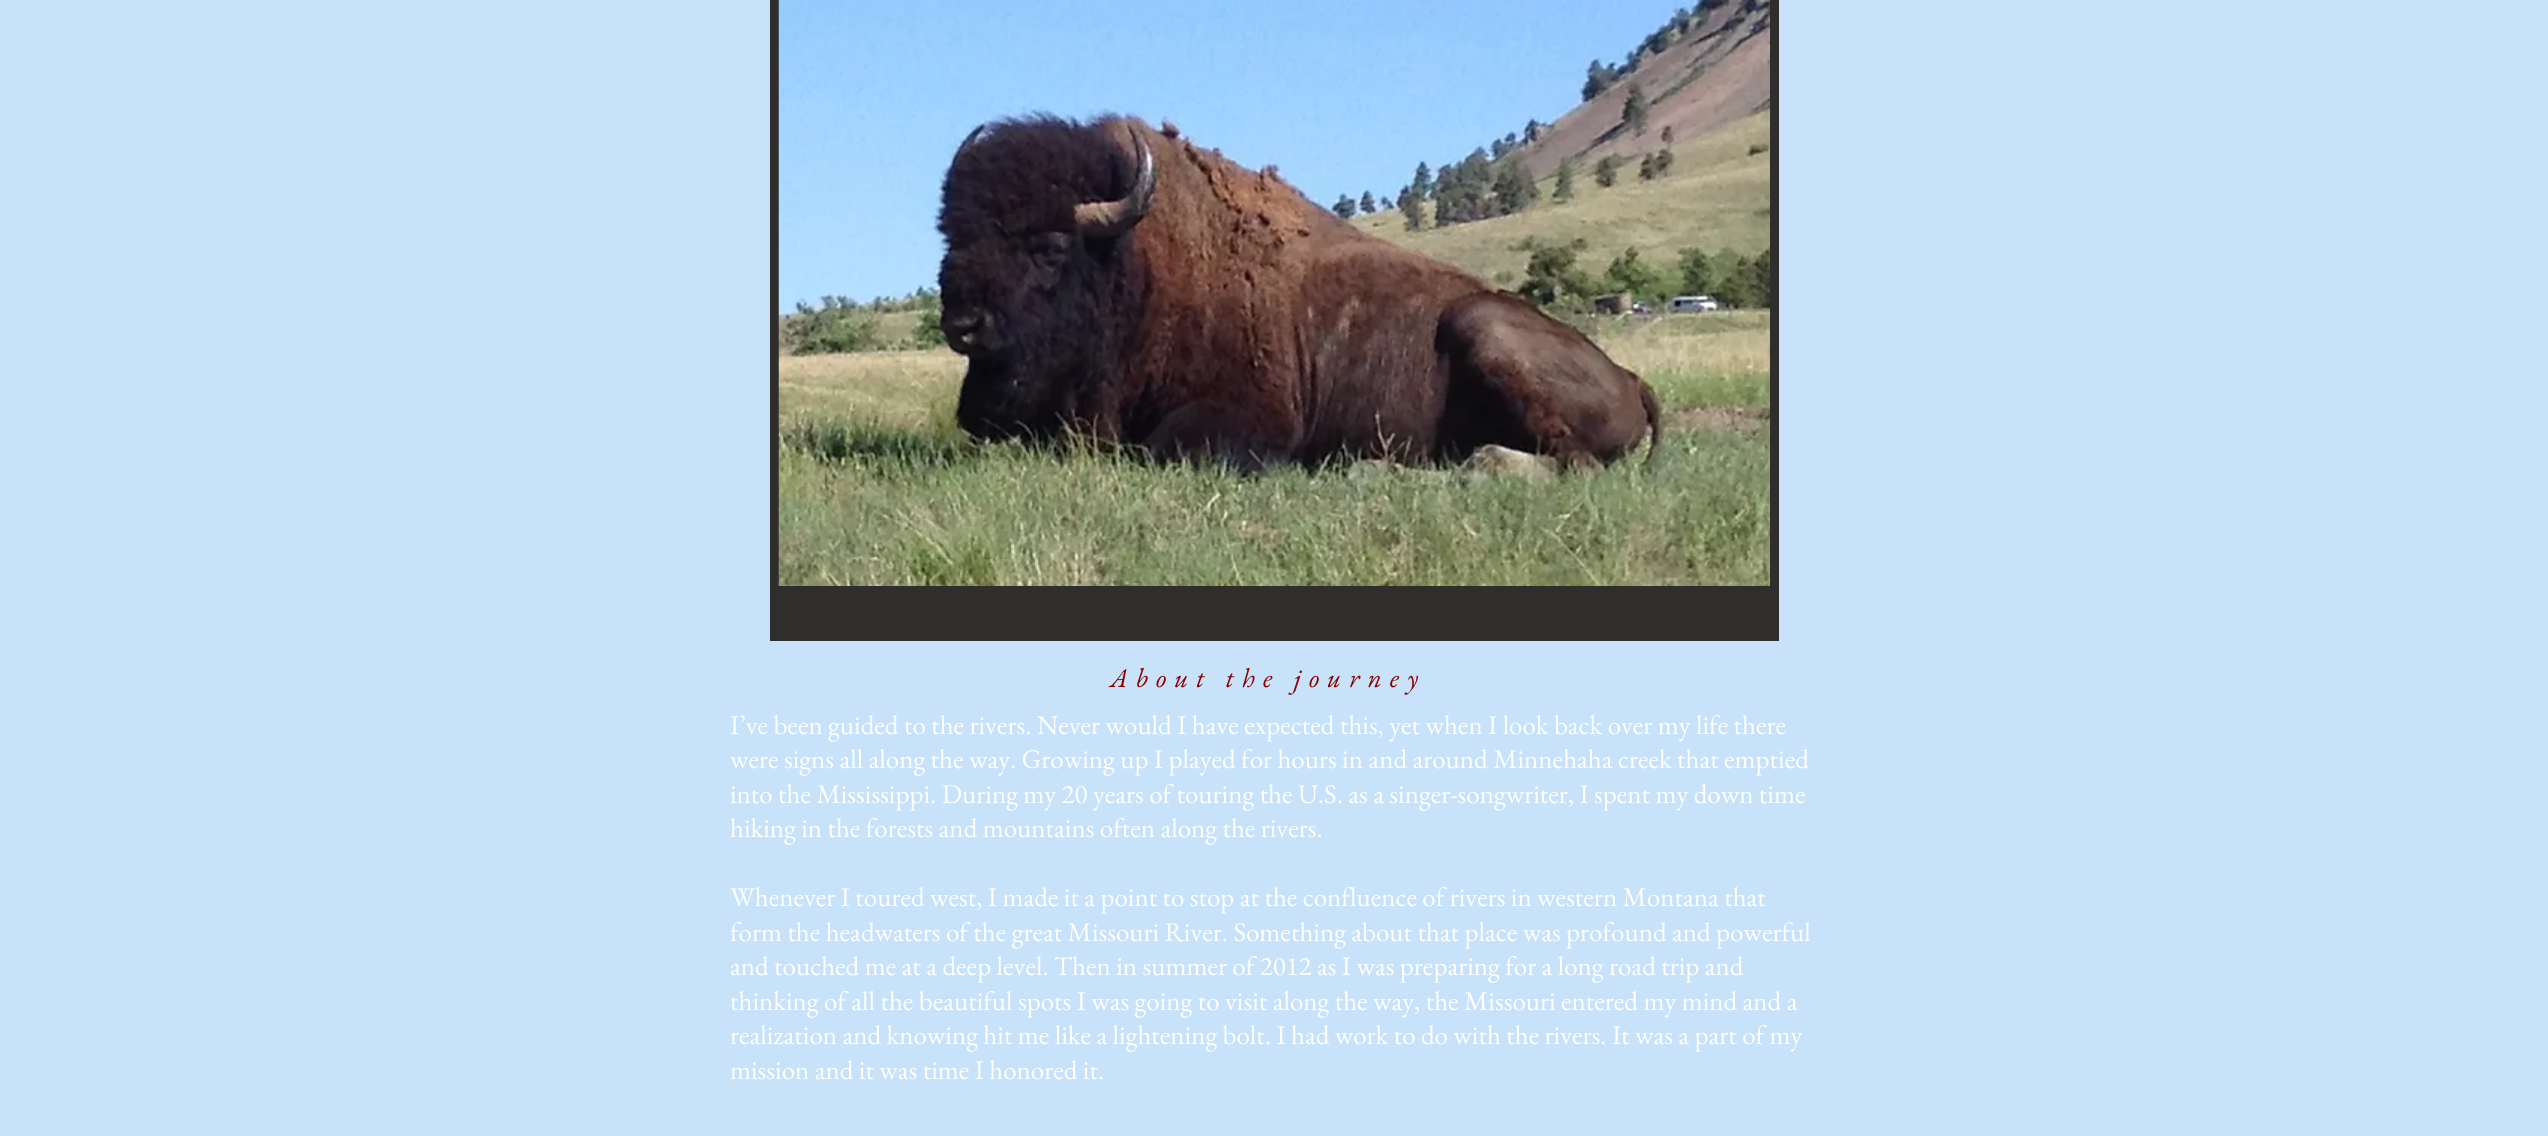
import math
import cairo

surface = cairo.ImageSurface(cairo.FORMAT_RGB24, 2548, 1136)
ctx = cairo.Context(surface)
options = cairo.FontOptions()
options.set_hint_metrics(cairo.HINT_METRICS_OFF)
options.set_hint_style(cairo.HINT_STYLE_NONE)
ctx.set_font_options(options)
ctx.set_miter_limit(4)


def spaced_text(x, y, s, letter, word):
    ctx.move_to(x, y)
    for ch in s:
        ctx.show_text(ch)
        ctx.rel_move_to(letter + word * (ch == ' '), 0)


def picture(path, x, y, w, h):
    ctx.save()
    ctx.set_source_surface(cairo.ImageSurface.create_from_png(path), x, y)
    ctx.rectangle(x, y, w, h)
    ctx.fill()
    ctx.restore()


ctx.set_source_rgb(0.78, 0.886, 0.973)
ctx.paint()
ctx.set_source_rgb(0.188, 0.176, 0.176)
ctx.rectangle(770, 0, 1009, 641)
ctx.fill()
picture("img1.png", 778, 0, 992, 586)
ctx.select_font_face("EB Garamond", cairo.FONT_SLANT_ITALIC)
ctx.set_font_size(27)
ctx.set_source_rgb(0.545, 0, 0)
spaced_text(1110, 687, "About the journey", 8.1, 0)
ctx.select_font_face("EB Garamond")
ctx.set_source_rgb(1, 1, 1)
ctx.move_to(730, 734)
ctx.show_text("I’ve been guided to the rivers. Never would I have expected this, yet when I look back over my life there")
ctx.move_to(730, 768)
ctx.show_text("were signs all along the way. Growing up I played for hours in and around Minnehaha creek that emptied")
ctx.move_to(730, 803)
ctx.show_text("into the Mississippi. During my 20 years of touring the U.S. as a singer-songwriter, I spent my down time")
ctx.move_to(730, 837)
ctx.show_text("hiking in the forests and mountains often along the rivers.")
ctx.move_to(730, 906)
ctx.show_text("Whenever I toured west, I made it a point to stop at the confluence of rivers in western Montana that")
ctx.move_to(730, 941)
ctx.show_text("form the headwaters of the great Missouri River. Something about that place was profound and powerful")
ctx.move_to(730, 975)
ctx.show_text("and touched me at a deep level. Then in summer of 2012 as I was preparing for a long road trip and")
ctx.move_to(730, 1010)
ctx.show_text("thinking of all the beautiful spots I was going to visit along the way, the Missouri entered my mind and a")
ctx.move_to(730, 1044)
ctx.show_text("realization and knowing hit me like a lightening bolt. I had work to do with the rivers. It was a part of my")
ctx.move_to(730, 1079)
ctx.show_text("mission and it was time I honored it.")
surface.write_to_png("page.png")
